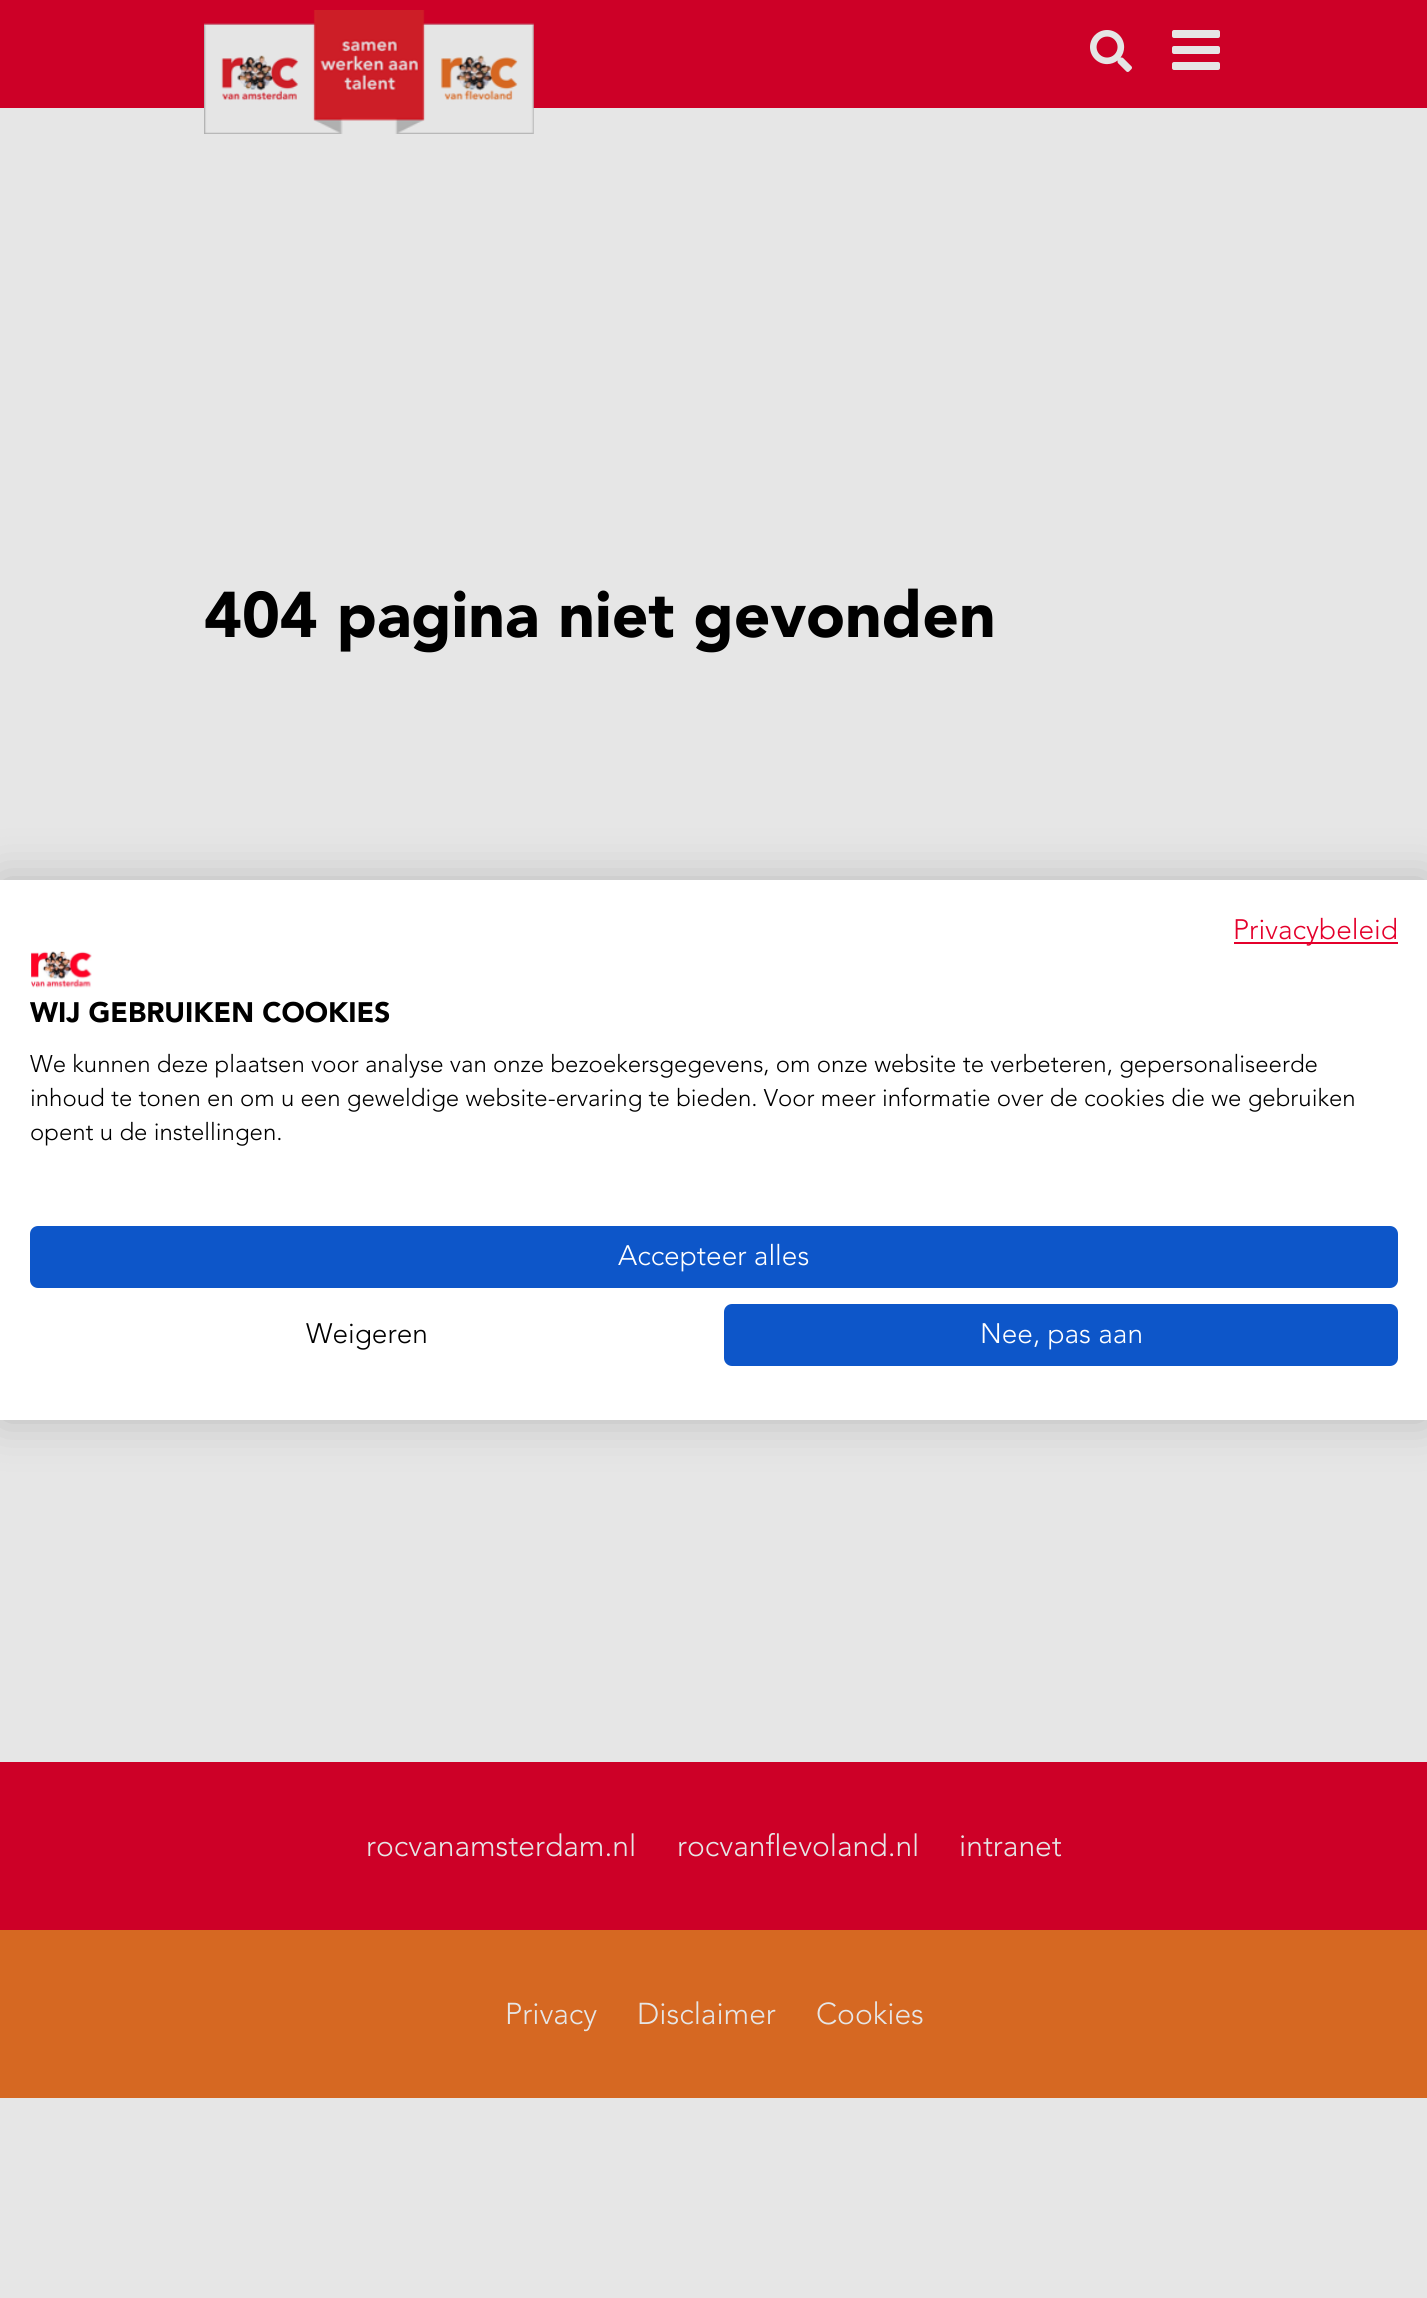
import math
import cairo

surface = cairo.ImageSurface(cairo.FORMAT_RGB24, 1427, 2298)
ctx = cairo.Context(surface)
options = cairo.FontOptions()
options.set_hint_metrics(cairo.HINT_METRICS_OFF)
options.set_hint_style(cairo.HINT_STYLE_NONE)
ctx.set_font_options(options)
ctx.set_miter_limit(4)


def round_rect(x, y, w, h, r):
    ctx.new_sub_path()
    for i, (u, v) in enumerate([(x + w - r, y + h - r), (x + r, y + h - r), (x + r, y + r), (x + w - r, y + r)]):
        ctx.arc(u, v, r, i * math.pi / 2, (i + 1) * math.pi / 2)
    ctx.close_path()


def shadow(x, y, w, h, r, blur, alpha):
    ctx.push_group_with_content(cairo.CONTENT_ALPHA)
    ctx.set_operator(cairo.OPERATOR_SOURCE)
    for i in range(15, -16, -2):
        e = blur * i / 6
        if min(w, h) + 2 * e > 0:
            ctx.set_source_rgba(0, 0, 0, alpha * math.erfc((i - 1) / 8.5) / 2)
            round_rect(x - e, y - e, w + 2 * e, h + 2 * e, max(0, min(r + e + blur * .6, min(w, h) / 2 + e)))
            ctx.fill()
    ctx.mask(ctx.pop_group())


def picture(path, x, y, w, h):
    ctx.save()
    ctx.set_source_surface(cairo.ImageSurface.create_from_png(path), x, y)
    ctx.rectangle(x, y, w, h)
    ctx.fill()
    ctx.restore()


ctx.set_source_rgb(0.902, 0.902, 0.902)
ctx.paint()
ctx.set_source_rgb(0.804, 0, 0.153)
ctx.rectangle(0, 0, 1427, 108)
ctx.fill()
picture("img1.png", 204, 10, 330, 124)
picture("img2.png", 1090, 30, 42, 42)
ctx.set_source_rgb(0.902, 0.902, 0.902)
round_rect(1172, 30, 48, 8, 2)
ctx.fill()
round_rect(1172, 46, 48, 8, 2)
ctx.fill()
round_rect(1172, 62, 48, 8, 2)
ctx.fill()
ctx.select_font_face("Avenir Black")
ctx.set_font_size(64)
ctx.set_source_rgb(0, 0, 0)
ctx.move_to(204, 637)
ctx.show_text("404 pagina niet gevonden")
ctx.set_source_rgb(0, 0, 0)
shadow(0, 880, 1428, 540, 0, 24, 0.2)
ctx.set_source_rgb(1, 1, 1)
ctx.rectangle(0, 880, 1427, 540)
ctx.fill()
ctx.set_source_rgb(0.894, 0, 0.169)
ctx.rectangle(1234, 942, 164, 2)
ctx.fill()
ctx.select_font_face("Avenir Light")
ctx.set_font_size(28)
ctx.move_to(1233, 939)
ctx.show_text("Privacybeleid")
picture("img3.png", 31, 951, 61, 37)
ctx.select_font_face("Avenir Black")
ctx.set_source_rgb(0, 0, 0)
ctx.move_to(30, 1022)
ctx.show_text("WIJ GEBRUIKEN COOKIES")
ctx.select_font_face("Avenir Light")
ctx.set_font_size(24)
ctx.move_to(30, 1072)
ctx.show_text("We kunnen deze plaatsen voor analyse van onze bezoekersgegevens, om onze website te verbeteren, gepersonaliseerde")
ctx.move_to(30, 1106)
ctx.show_text("inhoud te tonen en om u een geweldige website-ervaring te bieden. Voor meer informatie over de cookies die we gebruiken")
ctx.move_to(30, 1140)
ctx.show_text("opent u de instellingen.")
ctx.set_source_rgb(0.051, 0.337, 0.788)
round_rect(31, 1227, 1366, 60, 7)
ctx.fill_preserve()
ctx.stroke()
ctx.set_font_size(28)
ctx.set_source_rgb(1, 1, 1)
ctx.move_to(618, 1265)
ctx.show_text("Accepteer alles")
ctx.set_source_rgb(0, 0, 0)
ctx.move_to(306, 1343)
ctx.show_text("Weigeren")
ctx.set_source_rgb(0.051, 0.337, 0.788)
round_rect(725, 1305, 672, 60, 7)
ctx.fill_preserve()
ctx.stroke()
ctx.set_source_rgb(1, 1, 1)
ctx.move_to(980, 1343)
ctx.show_text("Nee, pas aan")
ctx.set_source_rgb(0.804, 0, 0.153)
ctx.rectangle(0, 1762, 1427, 168)
ctx.fill()
ctx.set_font_size(30)
ctx.set_source_rgb(0.902, 0.902, 0.902)
ctx.move_to(366, 1856)
ctx.show_text("rocvanamsterdam.nl")
ctx.move_to(677, 1856)
ctx.show_text("rocvanflevoland.nl")
ctx.move_to(959, 1856)
ctx.show_text("intranet")
ctx.set_source_rgb(0.839, 0.408, 0.133)
ctx.rectangle(0, 1930, 1427, 168)
ctx.fill()
ctx.set_source_rgb(0.902, 0.902, 0.902)
ctx.move_to(505, 2024)
ctx.show_text("Privacy")
ctx.move_to(637, 2024)
ctx.show_text("Disclaimer")
ctx.move_to(816, 2024)
ctx.show_text("Cookies")
surface.write_to_png("page.png")
